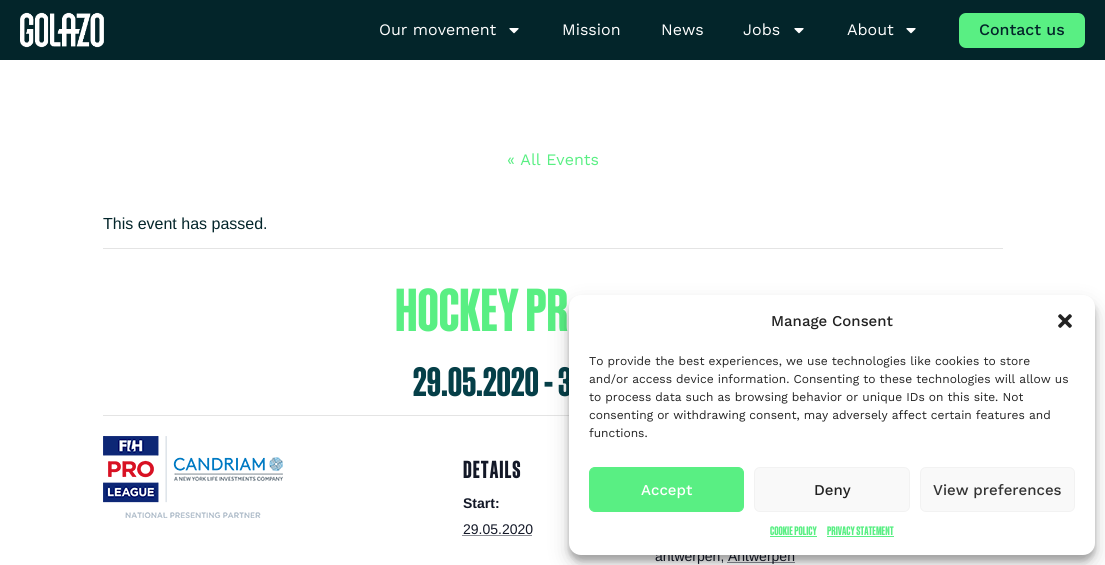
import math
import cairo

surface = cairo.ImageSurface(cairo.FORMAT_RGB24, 1105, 565)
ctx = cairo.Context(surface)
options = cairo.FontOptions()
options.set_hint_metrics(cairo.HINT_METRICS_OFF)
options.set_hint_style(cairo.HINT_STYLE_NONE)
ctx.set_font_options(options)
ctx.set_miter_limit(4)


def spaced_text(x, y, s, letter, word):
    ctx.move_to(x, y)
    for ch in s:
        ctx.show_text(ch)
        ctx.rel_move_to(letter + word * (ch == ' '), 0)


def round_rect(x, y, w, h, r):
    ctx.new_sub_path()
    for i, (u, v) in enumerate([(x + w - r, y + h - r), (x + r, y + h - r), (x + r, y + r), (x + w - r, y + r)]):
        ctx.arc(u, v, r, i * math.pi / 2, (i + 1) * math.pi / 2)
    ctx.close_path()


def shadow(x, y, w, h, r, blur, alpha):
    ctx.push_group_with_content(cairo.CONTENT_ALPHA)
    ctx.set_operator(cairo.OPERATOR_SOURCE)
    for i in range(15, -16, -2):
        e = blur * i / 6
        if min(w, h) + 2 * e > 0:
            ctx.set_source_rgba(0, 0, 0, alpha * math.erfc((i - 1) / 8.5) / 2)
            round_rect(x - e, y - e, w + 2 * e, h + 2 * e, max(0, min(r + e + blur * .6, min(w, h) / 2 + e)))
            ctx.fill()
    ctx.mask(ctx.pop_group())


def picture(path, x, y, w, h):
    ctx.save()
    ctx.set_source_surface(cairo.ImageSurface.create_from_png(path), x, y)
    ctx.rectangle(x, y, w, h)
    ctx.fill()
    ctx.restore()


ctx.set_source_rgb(1, 1, 1)
ctx.paint()
ctx.set_source_rgb(0.012, 0.145, 0.165)
ctx.rectangle(0, 0, 1105, 60)
ctx.fill()
picture("img1.png", 20, 12, 84, 36)
ctx.select_font_face("Work Sans")
ctx.set_font_size(16)
ctx.set_source_rgb(1, 1, 1)
ctx.move_to(379, 35)
ctx.show_text("Our movement")
picture("img2.png", 509, 28, 10, 6)
ctx.move_to(562, 35)
ctx.show_text("Mission")
ctx.move_to(661, 35)
ctx.show_text("News")
ctx.move_to(743, 35)
ctx.show_text("Jobs")
picture("img2.png", 794, 28, 10, 6)
ctx.move_to(847, 35)
ctx.show_text("About")
picture("img2.png", 906, 28, 10, 6)
ctx.set_source_rgb(0.349, 0.937, 0.514)
round_rect(959, 13, 126, 35, 7)
ctx.fill()
ctx.select_font_face("Work Sans Medium")
ctx.set_source_rgb(0.012, 0.145, 0.165)
ctx.move_to(979, 35)
ctx.show_text("Contact us")
ctx.select_font_face("Work Sans")
ctx.set_source_rgb(0.349, 0.937, 0.514)
ctx.move_to(507, 165)
ctx.show_text("« All Events")
ctx.set_source_rgb(0.894, 0.894, 0.894)
ctx.rectangle(103, 248, 900, 1)
ctx.fill()
ctx.select_font_face("Liberation Sans")
ctx.set_source_rgb(0.012, 0.145, 0.165)
ctx.move_to(103, 229)
ctx.show_text("This event has passed.")
ctx.select_font_face("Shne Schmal", cairo.FONT_SLANT_NORMAL, cairo.FONT_WEIGHT_BOLD)
ctx.set_font_size(59)
ctx.set_source_rgb(0.349, 0.937, 0.514)
ctx.move_to(395, 331)
ctx.show_text("HOCKEY PR")
ctx.set_font_size(40)
ctx.set_source_rgb(0.02, 0.247, 0.282)
ctx.move_to(413, 396)
ctx.show_text("29.05.2020 - 3")
picture("img3.png", 103, 436, 180, 82)
ctx.set_source_rgb(0.894, 0.894, 0.894)
ctx.rectangle(103, 415, 466, 1)
ctx.fill()
ctx.set_font_size(24)
ctx.set_source_rgb(0.078, 0.094, 0.153)
spaced_text(463, 478, "DETAILS", 1, 0)
ctx.select_font_face("Liberation Sans", cairo.FONT_SLANT_NORMAL, cairo.FONT_WEIGHT_BOLD)
ctx.set_font_size(14)
ctx.move_to(463, 508)
ctx.show_text("Start:")
ctx.select_font_face("Liberation Sans")
ctx.move_to(463, 534)
ctx.show_text("29.05.2020")
ctx.new_path()
ctx.move_to(462.5, 535.5)
ctx.line_to(532.5, 535.5)
ctx.set_line_width(1)
ctx.set_dash([1, 1])
ctx.stroke()
ctx.move_to(655, 561)
ctx.show_text("antwerpen,")
ctx.new_path()
ctx.move_to(727.5, 562.5)
ctx.line_to(794.5, 562.5)
ctx.stroke()
ctx.move_to(728, 561)
ctx.show_text("Antwerpen")
ctx.set_source_rgb(0, 0, 0)
shadow(569, 301, 526, 260, 12, 3, 0.23)
shadow(569, 305, 526, 260, 12, 10, 0.19)
ctx.set_source_rgb(1, 1, 1)
round_rect(569, 295, 526, 260, 12)
ctx.fill()
ctx.select_font_face("Work Sans Medium")
ctx.set_font_size(15)
ctx.set_source_rgb(0.133, 0.133, 0.133)
ctx.move_to(771, 326)
ctx.show_text("Manage Consent")
picture("img4.png", 1058, 314, 14, 14)
ctx.select_font_face("Work Sans")
ctx.set_font_size(12)
ctx.move_to(589, 365)
ctx.show_text("To provide the best experiences, we use technologies like cookies to store")
ctx.move_to(589, 383)
ctx.show_text("and/or access device information. Consenting to these technologies will allow us")
ctx.move_to(589, 401)
ctx.show_text("to process data such as browsing behavior or unique IDs on this site. Not")
ctx.move_to(589, 419)
ctx.show_text("consenting or withdrawing consent, may adversely affect certain features and")
ctx.move_to(589, 437)
ctx.show_text("functions.")
ctx.set_source_rgb(0.349, 0.937, 0.514)
round_rect(589.5, 467.5, 154, 44, 5.5)
ctx.fill_preserve()
ctx.set_dash([])
ctx.stroke()
ctx.select_font_face("Work Sans Medium")
ctx.set_font_size(15)
ctx.set_source_rgb(1, 1, 1)
ctx.move_to(641, 495)
ctx.show_text("Accept")
ctx.set_source_rgb(0.976, 0.976, 0.976)
round_rect(754.5, 467.5, 155, 44, 5.5)
ctx.fill_preserve()
ctx.set_source_rgb(0.949, 0.949, 0.949)
ctx.stroke()
ctx.set_source_rgb(0.133, 0.133, 0.133)
ctx.move_to(814, 495)
ctx.show_text("Deny")
ctx.set_source_rgb(0.976, 0.976, 0.976)
round_rect(920.5, 467.5, 154, 44, 5.5)
ctx.fill_preserve()
ctx.set_source_rgb(0.949, 0.949, 0.949)
ctx.stroke()
ctx.set_source_rgb(0.2, 0.2, 0.2)
ctx.move_to(933, 495)
ctx.show_text("View preferences")
ctx.select_font_face("Shne Schmal", cairo.FONT_SLANT_NORMAL, cairo.FONT_WEIGHT_BOLD)
ctx.set_font_size(12)
ctx.set_source_rgb(0.349, 0.937, 0.514)
ctx.move_to(770, 535)
ctx.show_text("COOKIE POLICY")
ctx.rectangle(770, 536, 47, 1)
ctx.fill()
ctx.move_to(827, 535)
ctx.show_text("PRIVACY STATEMENT")
ctx.rectangle(827, 536, 67, 1)
ctx.fill()
surface.write_to_png("page.png")
